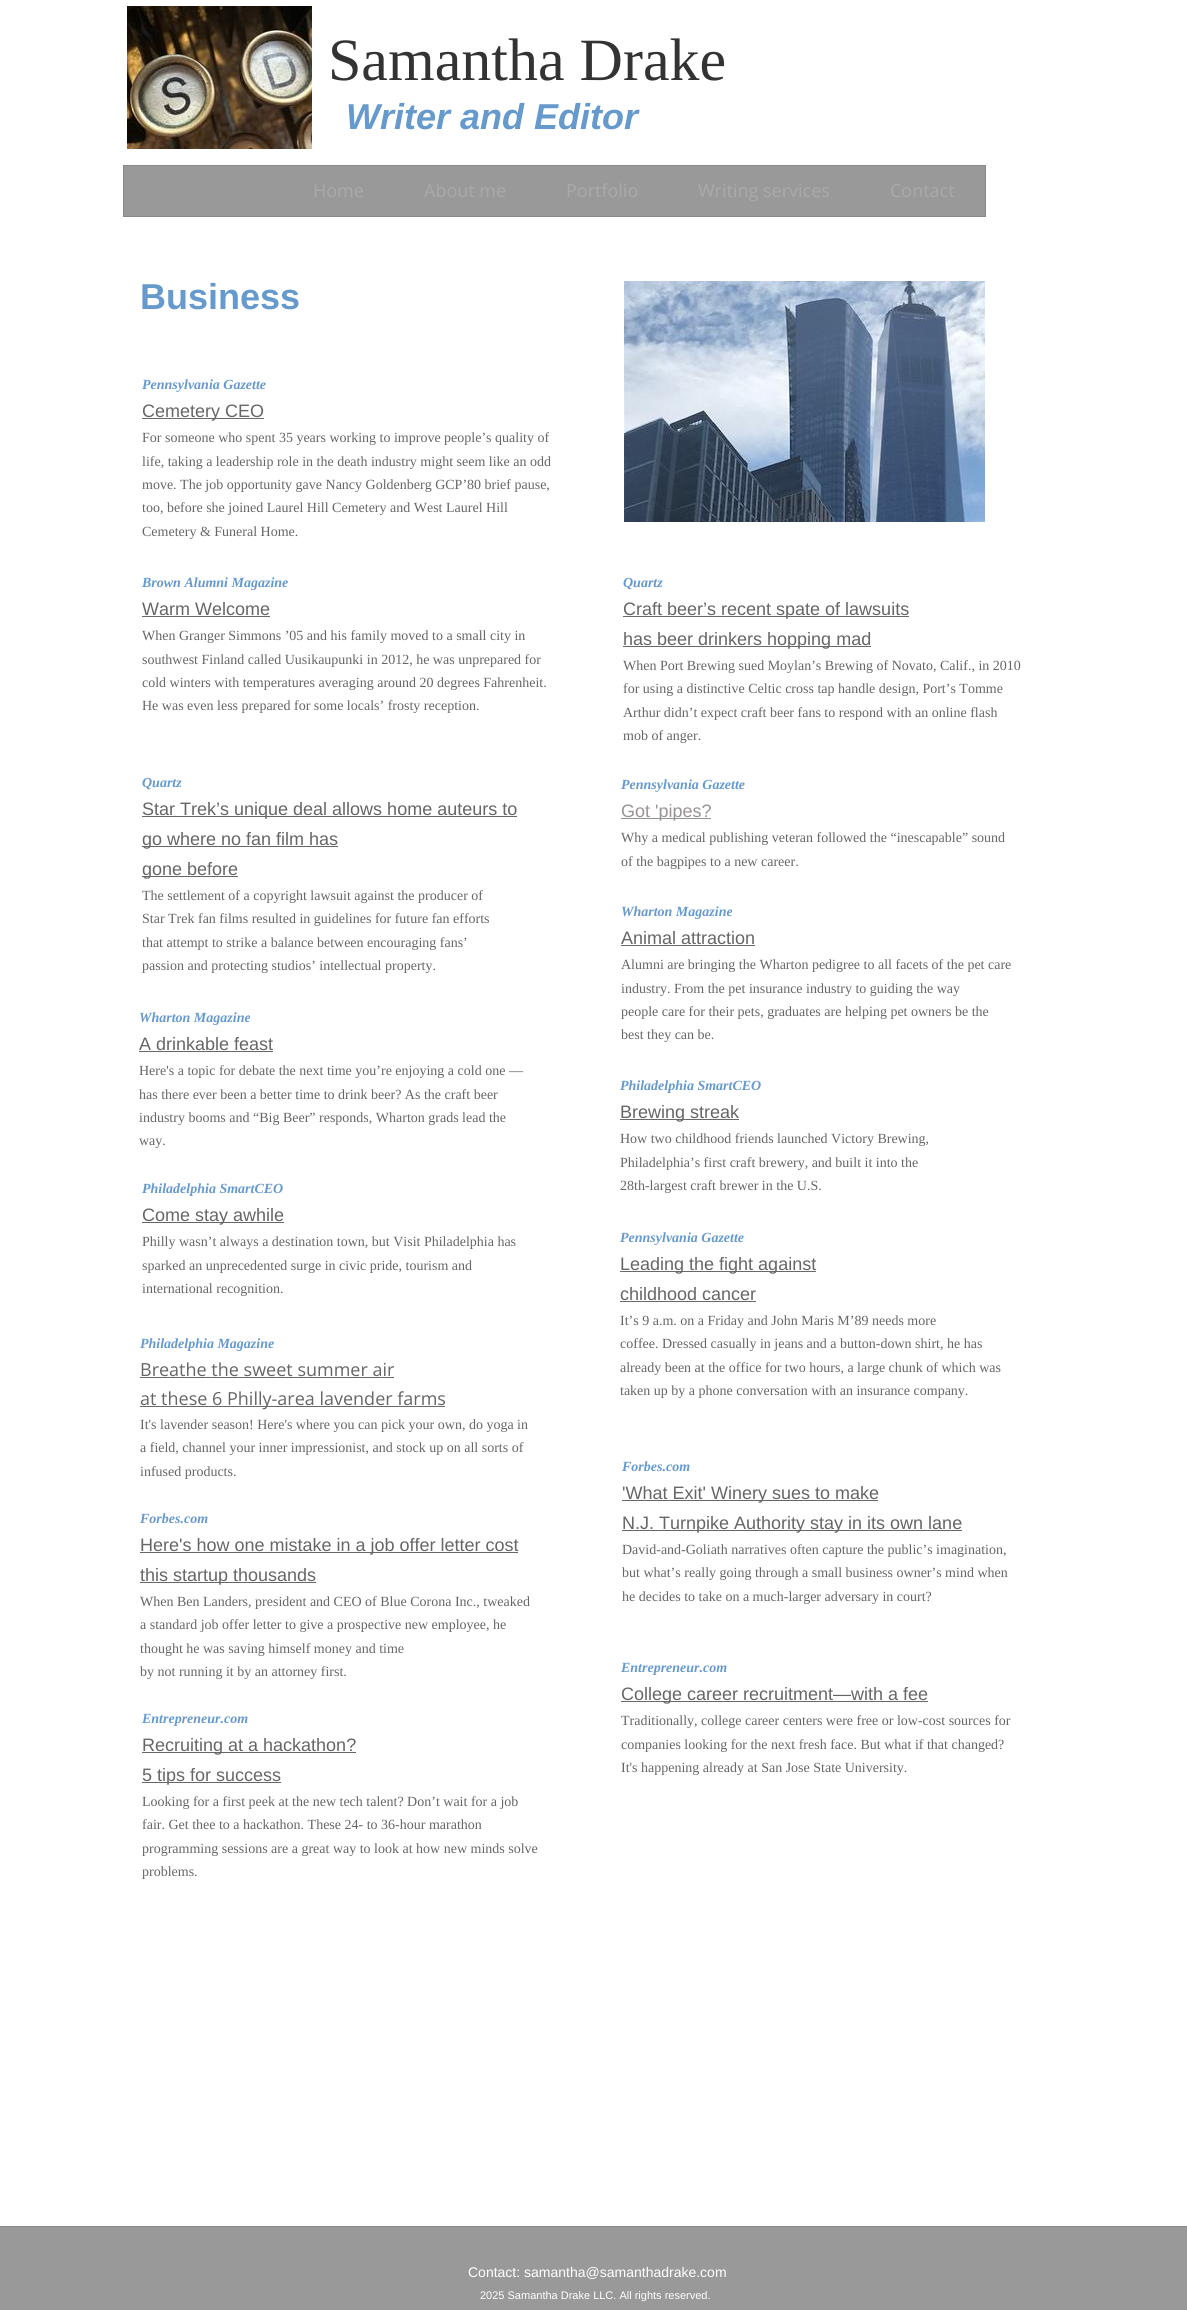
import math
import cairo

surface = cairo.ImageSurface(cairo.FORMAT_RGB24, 1187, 2310)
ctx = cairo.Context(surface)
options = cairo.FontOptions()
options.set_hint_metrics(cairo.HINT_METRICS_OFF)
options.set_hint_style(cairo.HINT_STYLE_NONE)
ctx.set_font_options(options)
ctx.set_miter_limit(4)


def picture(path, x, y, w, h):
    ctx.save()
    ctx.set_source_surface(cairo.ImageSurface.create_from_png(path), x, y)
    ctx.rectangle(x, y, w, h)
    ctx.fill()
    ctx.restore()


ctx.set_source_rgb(1, 1, 1)
ctx.paint()
picture("img1.png", 127, 6, 185, 143)
ctx.select_font_face("Liberation Serif")
ctx.set_font_size(60)
ctx.set_source_rgb(0.2, 0.2, 0.2)
ctx.move_to(328, 80)
ctx.show_text("Samantha Drake")
ctx.select_font_face("Liberation Sans", cairo.FONT_SLANT_ITALIC, cairo.FONT_WEIGHT_BOLD)
ctx.set_font_size(36)
ctx.set_source_rgb(0.4, 0.6, 0.8)
ctx.move_to(346, 129)
ctx.show_text("Writer and Editor")
ctx.set_source_rgb(0.6, 0.6, 0.6)
ctx.rectangle(123.5, 165.5, 862, 51)
ctx.fill_preserve()
ctx.set_source_rgb(0.533, 0.533, 0.533)
ctx.set_line_width(1)
ctx.stroke()
ctx.select_font_face("Open Sans")
ctx.set_font_size(18)
ctx.set_source_rgb(0.667, 0.667, 0.667)
ctx.move_to(313, 197)
ctx.show_text("Home")
ctx.move_to(424, 197)
ctx.show_text("About me")
ctx.move_to(566, 197)
ctx.show_text("Portfolio")
ctx.move_to(698, 197)
ctx.show_text("Writing services")
ctx.move_to(890, 197)
ctx.show_text("Contact")
ctx.select_font_face("Liberation Sans", cairo.FONT_SLANT_NORMAL, cairo.FONT_WEIGHT_BOLD)
ctx.set_font_size(36)
ctx.set_source_rgb(0.4, 0.6, 0.8)
ctx.move_to(140, 309)
ctx.show_text("Business")
picture("img2.png", 624, 281, 361, 241)
ctx.select_font_face("Liberation Serif", cairo.FONT_SLANT_ITALIC, cairo.FONT_WEIGHT_BOLD)
ctx.set_font_size(14)
ctx.move_to(142, 389)
ctx.show_text("Pennsylvania Gazette")
ctx.set_source_rgb(0.412, 0.412, 0.412)
ctx.rectangle(142, 418, 122, 1)
ctx.fill()
ctx.select_font_face("Liberation Sans")
ctx.set_font_size(18)
ctx.set_source_rgb(0.4, 0.4, 0.4)
ctx.move_to(142, 417)
ctx.show_text("Cemetery CEO")
ctx.select_font_face("Liberation Serif")
ctx.set_font_size(14)
ctx.move_to(142, 442)
ctx.show_text("For someone who spent 35 years working to improve people’s quality of")
ctx.move_to(142, 466)
ctx.show_text("life, taking a leadership role in the death industry might seem like an odd")
ctx.move_to(142, 489)
ctx.show_text("move. The job opportunity gave Nancy Goldenberg GCP’80 brief pause,")
ctx.move_to(142, 512)
ctx.show_text("too, before she joined Laurel Hill Cemetery and West Laurel Hill")
ctx.move_to(142, 536)
ctx.show_text("Cemetery & Funeral Home.")
ctx.select_font_face("Liberation Serif", cairo.FONT_SLANT_ITALIC, cairo.FONT_WEIGHT_BOLD)
ctx.set_source_rgb(0.4, 0.6, 0.8)
ctx.move_to(142, 587)
ctx.show_text("Brown Alumni Magazine")
ctx.select_font_face("Liberation Sans")
ctx.set_font_size(18)
ctx.set_source_rgb(0.4, 0.4, 0.4)
ctx.move_to(142, 615)
ctx.show_text("Warm Welcome")
ctx.set_source_rgb(0.412, 0.412, 0.412)
ctx.rectangle(142, 616, 128, 1)
ctx.fill()
ctx.select_font_face("Liberation Serif")
ctx.set_font_size(14)
ctx.set_source_rgb(0.4, 0.4, 0.4)
ctx.move_to(142, 640)
ctx.show_text("When Granger Simmons ’05 and his family moved to a small city in")
ctx.move_to(142, 664)
ctx.show_text("southwest Finland called Uusikaupunki in 2012, he was unprepared for")
ctx.move_to(142, 687)
ctx.show_text("cold winters with temperatures averaging around 20 degrees Fahrenheit.")
ctx.move_to(142, 710)
ctx.show_text("He was even less prepared for some locals’ frosty reception.")
ctx.select_font_face("Liberation Serif", cairo.FONT_SLANT_ITALIC, cairo.FONT_WEIGHT_BOLD)
ctx.set_source_rgb(0.4, 0.6, 0.8)
ctx.move_to(623, 587)
ctx.show_text("Quartz")
ctx.set_source_rgb(0.412, 0.412, 0.412)
ctx.rectangle(623, 616, 286, 1)
ctx.fill()
ctx.select_font_face("Liberation Sans")
ctx.set_font_size(18)
ctx.set_source_rgb(0.4, 0.4, 0.4)
ctx.move_to(623, 615)
ctx.show_text("Craft beer’s recent spate of lawsuits")
ctx.set_source_rgb(0.412, 0.412, 0.412)
ctx.rectangle(623, 646, 248, 1)
ctx.fill()
ctx.set_source_rgb(0.4, 0.4, 0.4)
ctx.move_to(623, 645)
ctx.show_text("has beer drinkers hopping mad")
ctx.select_font_face("Liberation Serif")
ctx.set_font_size(14)
ctx.move_to(623, 670)
ctx.show_text("When Port Brewing sued Moylan’s Brewing of Novato, Calif., in 2010")
ctx.move_to(623, 693)
ctx.show_text("for using a distinctive Celtic cross tap handle design, Port’s Tomme")
ctx.move_to(623, 717)
ctx.show_text("Arthur didn’t expect craft beer fans to respond with an online flash")
ctx.move_to(623, 740)
ctx.show_text("mob of anger.")
ctx.select_font_face("Liberation Serif", cairo.FONT_SLANT_ITALIC, cairo.FONT_WEIGHT_BOLD)
ctx.set_source_rgb(0.4, 0.6, 0.8)
ctx.move_to(142, 787)
ctx.show_text("Quartz")
ctx.set_source_rgb(0.4, 0.4, 0.4)
ctx.rectangle(142, 816, 375, 1)
ctx.fill()
ctx.select_font_face("Liberation Sans")
ctx.set_font_size(18)
ctx.move_to(142, 815)
ctx.show_text("Star Trek’s unique deal allows home auteurs to")
ctx.rectangle(142, 846, 196, 1)
ctx.fill()
ctx.move_to(142, 845)
ctx.show_text("go where no fan film has")
ctx.rectangle(142, 876, 96, 1)
ctx.fill()
ctx.move_to(142, 875)
ctx.show_text("gone before")
ctx.select_font_face("Liberation Serif")
ctx.set_font_size(14)
ctx.move_to(142, 900)
ctx.show_text("The settlement of a copyright lawsuit against the producer of")
ctx.move_to(142, 923)
ctx.show_text("Star Trek fan films resulted in guidelines for future fan efforts")
ctx.move_to(142, 947)
ctx.show_text("that attempt to strike a balance between encouraging fans’")
ctx.move_to(142, 970)
ctx.show_text("passion and protecting studios’ intellectual property.")
ctx.select_font_face("Liberation Serif", cairo.FONT_SLANT_ITALIC, cairo.FONT_WEIGHT_BOLD)
ctx.set_source_rgb(0.4, 0.6, 0.8)
ctx.move_to(621, 789)
ctx.show_text("Pennsylvania Gazette")
ctx.set_source_rgb(0.592, 0.576, 0.584)
ctx.rectangle(621, 818, 90, 1)
ctx.fill()
ctx.select_font_face("Liberation Sans")
ctx.set_font_size(18)
ctx.move_to(621, 817)
ctx.show_text("Got 'pipes?")
ctx.select_font_face("Liberation Serif")
ctx.set_font_size(14)
ctx.set_source_rgb(0.4, 0.4, 0.4)
ctx.move_to(621, 842)
ctx.show_text("Why a medical publishing veteran followed the “inescapable” sound")
ctx.move_to(621, 866)
ctx.show_text("of the bagpipes to a new career.")
ctx.select_font_face("Liberation Serif", cairo.FONT_SLANT_ITALIC, cairo.FONT_WEIGHT_BOLD)
ctx.set_source_rgb(0.4, 0.6, 0.8)
ctx.move_to(621, 916)
ctx.show_text("Wharton Magazine")
ctx.select_font_face("Liberation Sans")
ctx.set_font_size(18)
ctx.set_source_rgb(0.4, 0.4, 0.4)
ctx.move_to(621, 944)
ctx.show_text("Animal attraction")
ctx.set_source_rgb(0.412, 0.412, 0.412)
ctx.rectangle(621, 945, 134, 1)
ctx.fill()
ctx.select_font_face("Liberation Serif")
ctx.set_font_size(14)
ctx.set_source_rgb(0.4, 0.4, 0.4)
ctx.move_to(621, 969)
ctx.show_text("Alumni are bringing the Wharton pedigree to all facets of the pet care")
ctx.move_to(621, 993)
ctx.show_text("industry. From the pet insurance industry to guiding the way")
ctx.move_to(621, 1016)
ctx.show_text("people care for their pets, graduates are helping pet owners be the")
ctx.move_to(621, 1039)
ctx.show_text("best they can be.")
ctx.select_font_face("Liberation Serif", cairo.FONT_SLANT_ITALIC, cairo.FONT_WEIGHT_BOLD)
ctx.set_source_rgb(0.4, 0.6, 0.8)
ctx.move_to(139, 1022)
ctx.show_text("Wharton Magazine")
ctx.select_font_face("Liberation Sans")
ctx.set_font_size(18)
ctx.set_source_rgb(0.4, 0.4, 0.4)
ctx.move_to(139, 1050)
ctx.show_text("A drinkable feast")
ctx.rectangle(139, 1051, 134, 1)
ctx.fill()
ctx.select_font_face("Liberation Serif")
ctx.set_font_size(14)
ctx.move_to(139, 1075)
ctx.show_text("Here's a topic for debate the next time you’re enjoying a cold one —")
ctx.move_to(139, 1099)
ctx.show_text("has there ever been a better time to drink beer? As the craft beer")
ctx.move_to(139, 1122)
ctx.show_text("industry booms and “Big Beer” responds, Wharton grads lead the")
ctx.move_to(139, 1145)
ctx.show_text("way.")
ctx.select_font_face("Liberation Serif", cairo.FONT_SLANT_ITALIC, cairo.FONT_WEIGHT_BOLD)
ctx.set_source_rgb(0.4, 0.6, 0.8)
ctx.move_to(620, 1090)
ctx.show_text("Philadelphia SmartCEO")
ctx.set_source_rgb(0.412, 0.412, 0.412)
ctx.rectangle(620, 1119, 119, 1)
ctx.fill()
ctx.select_font_face("Liberation Sans")
ctx.set_font_size(18)
ctx.set_source_rgb(0.4, 0.4, 0.4)
ctx.move_to(620, 1118)
ctx.show_text("Brewing streak")
ctx.select_font_face("Liberation Serif")
ctx.set_font_size(14)
ctx.move_to(620, 1143)
ctx.show_text("How two childhood friends launched Victory Brewing,")
ctx.move_to(620, 1167)
ctx.show_text("Philadelphia’s first craft brewery, and built it into the")
ctx.move_to(620, 1190)
ctx.show_text("28th-largest craft brewer in the U.S.")
ctx.select_font_face("Liberation Serif", cairo.FONT_SLANT_ITALIC, cairo.FONT_WEIGHT_BOLD)
ctx.set_source_rgb(0.4, 0.6, 0.8)
ctx.move_to(142, 1193)
ctx.show_text("Philadelphia SmartCEO")
ctx.set_source_rgb(0.4, 0.4, 0.4)
ctx.rectangle(142, 1222, 142, 1)
ctx.fill()
ctx.select_font_face("Liberation Sans")
ctx.set_font_size(18)
ctx.move_to(142, 1221)
ctx.show_text("Come stay awhile")
ctx.select_font_face("Liberation Serif")
ctx.set_font_size(14)
ctx.move_to(142, 1246)
ctx.show_text("Philly wasn’t always a destination town, but Visit Philadelphia has")
ctx.move_to(142, 1270)
ctx.show_text("sparked an unprecedented surge in civic pride, tourism and")
ctx.move_to(142, 1293)
ctx.show_text("international recognition.")
ctx.select_font_face("Liberation Serif", cairo.FONT_SLANT_ITALIC, cairo.FONT_WEIGHT_BOLD)
ctx.set_source_rgb(0.4, 0.6, 0.8)
ctx.move_to(620, 1242)
ctx.show_text("Pennsylvania Gazette")
ctx.set_source_rgb(0.412, 0.412, 0.412)
ctx.rectangle(620, 1271, 196, 1)
ctx.fill()
ctx.select_font_face("Liberation Sans")
ctx.set_font_size(18)
ctx.set_source_rgb(0.4, 0.4, 0.4)
ctx.move_to(620, 1270)
ctx.show_text("Leading the fight against")
ctx.move_to(620, 1300)
ctx.show_text("childhood cancer")
ctx.set_source_rgb(0.412, 0.412, 0.412)
ctx.rectangle(620, 1301, 136, 1)
ctx.fill()
ctx.select_font_face("Liberation Serif")
ctx.set_font_size(14)
ctx.set_source_rgb(0.4, 0.4, 0.4)
ctx.move_to(620, 1325)
ctx.show_text("It’s 9 a.m. on a Friday and John Maris M’89 needs more")
ctx.move_to(620, 1348)
ctx.show_text("coffee. Dressed casually in jeans and a button-down shirt, he has")
ctx.move_to(620, 1372)
ctx.show_text("already been at the office for two hours, a large chunk of which was")
ctx.move_to(620, 1395)
ctx.show_text("taken up by a phone conversation with an insurance company.")
ctx.select_font_face("Liberation Serif", cairo.FONT_SLANT_ITALIC, cairo.FONT_WEIGHT_BOLD)
ctx.set_source_rgb(0.4, 0.6, 0.8)
ctx.move_to(140, 1348)
ctx.show_text("Philadelphia Magazine")
ctx.select_font_face("Open Sans")
ctx.set_font_size(18)
ctx.set_source_rgb(0.4, 0.4, 0.4)
ctx.move_to(140, 1376)
ctx.show_text("Breathe the sweet summer air")
ctx.set_source_rgb(0.412, 0.412, 0.412)
ctx.rectangle(140, 1377, 254, 1)
ctx.fill()
ctx.rectangle(140, 1406, 305, 1)
ctx.fill()
ctx.set_source_rgb(0.4, 0.4, 0.4)
ctx.move_to(140, 1405)
ctx.show_text("at these 6 Philly-area lavender farms")
ctx.select_font_face("Liberation Serif")
ctx.set_font_size(14)
ctx.move_to(140, 1429)
ctx.show_text("It's lavender season! Here's where you can pick your own, do yoga in")
ctx.move_to(140, 1452)
ctx.show_text("a field, channel your inner impressionist, and stock up on all sorts of")
ctx.move_to(140, 1476)
ctx.show_text("infused products.")
ctx.select_font_face("Liberation Serif", cairo.FONT_SLANT_ITALIC, cairo.FONT_WEIGHT_BOLD)
ctx.set_source_rgb(0.4, 0.6, 0.8)
ctx.move_to(140, 1523)
ctx.show_text("Forbes.com")
ctx.set_source_rgb(0.4, 0.4, 0.4)
ctx.rectangle(140, 1552, 378, 1)
ctx.fill()
ctx.select_font_face("Liberation Sans")
ctx.set_font_size(18)
ctx.move_to(140, 1551)
ctx.show_text("Here's how one mistake in a job offer letter cost")
ctx.rectangle(140, 1582, 176, 1)
ctx.fill()
ctx.move_to(140, 1581)
ctx.show_text("this startup thousands")
ctx.select_font_face("Liberation Serif")
ctx.set_font_size(14)
ctx.move_to(140, 1606)
ctx.show_text("When Ben Landers, president and CEO of Blue Corona Inc., tweaked")
ctx.move_to(140, 1629)
ctx.show_text("a standard job offer letter to give a prospective new employee, he")
ctx.move_to(140, 1653)
ctx.show_text("thought he was saving himself money and time")
ctx.move_to(140, 1676)
ctx.show_text("by not running it by an attorney first.")
ctx.select_font_face("Liberation Serif", cairo.FONT_SLANT_ITALIC, cairo.FONT_WEIGHT_BOLD)
ctx.set_source_rgb(0.4, 0.6, 0.8)
ctx.move_to(622, 1471)
ctx.show_text("Forbes.com")
ctx.set_source_rgb(0.4, 0.4, 0.4)
ctx.rectangle(622, 1500, 256, 1)
ctx.fill()
ctx.select_font_face("Liberation Sans")
ctx.set_font_size(18)
ctx.move_to(622, 1499)
ctx.show_text("'What Exit' Winery sues to make")
ctx.rectangle(622, 1530, 340, 1)
ctx.fill()
ctx.move_to(622, 1529)
ctx.show_text("N.J. Turnpike Authority stay in its own lane")
ctx.select_font_face("Liberation Serif")
ctx.set_font_size(14)
ctx.move_to(622, 1554)
ctx.show_text("David-and-Goliath narratives often capture the public’s imagination,")
ctx.move_to(622, 1577)
ctx.show_text("but what’s really going through a small business owner’s mind when")
ctx.move_to(622, 1601)
ctx.show_text("he decides to take on a much-larger adversary in court?")
ctx.select_font_face("Liberation Serif", cairo.FONT_SLANT_ITALIC, cairo.FONT_WEIGHT_BOLD)
ctx.set_source_rgb(0.4, 0.6, 0.8)
ctx.move_to(142, 1723)
ctx.show_text("Entrepreneur.com")
ctx.set_source_rgb(0.4, 0.4, 0.4)
ctx.rectangle(142, 1752, 214, 1)
ctx.fill()
ctx.select_font_face("Liberation Sans")
ctx.set_font_size(18)
ctx.move_to(142, 1751)
ctx.show_text("Recruiting at a hackathon?")
ctx.rectangle(142, 1782, 139, 1)
ctx.fill()
ctx.move_to(142, 1781)
ctx.show_text("5 tips for success")
ctx.select_font_face("Liberation Serif")
ctx.set_font_size(14)
ctx.move_to(142, 1806)
ctx.show_text("Looking for a first peek at the new tech talent? Don’t wait for a job")
ctx.move_to(142, 1829)
ctx.show_text("fair. Get thee to a hackathon. These 24- to 36-hour marathon")
ctx.move_to(142, 1853)
ctx.show_text("programming sessions are a great way to look at how new minds solve")
ctx.move_to(142, 1876)
ctx.show_text("problems.")
ctx.select_font_face("Liberation Serif", cairo.FONT_SLANT_ITALIC, cairo.FONT_WEIGHT_BOLD)
ctx.set_source_rgb(0.4, 0.6, 0.8)
ctx.move_to(621, 1672)
ctx.show_text("Entrepreneur.com")
ctx.set_source_rgb(0.412, 0.412, 0.412)
ctx.rectangle(621, 1701, 307, 1)
ctx.fill()
ctx.select_font_face("Liberation Sans")
ctx.set_font_size(18)
ctx.set_source_rgb(0.4, 0.4, 0.4)
ctx.move_to(621, 1700)
ctx.show_text("College career recruitment—with a fee")
ctx.select_font_face("Liberation Serif")
ctx.set_font_size(14)
ctx.move_to(621, 1725)
ctx.show_text("Traditionally, college career centers were free or low-cost sources for")
ctx.move_to(621, 1749)
ctx.show_text("companies looking for the next fresh face. But what if that changed?")
ctx.move_to(621, 1772)
ctx.show_text("It's happening already at San Jose State University.")
ctx.set_source_rgb(0.6, 0.6, 0.6)
ctx.rectangle(0, 2227, 1187, 83)
ctx.fill()
ctx.set_source_rgb(0.533, 0.533, 0.533)
ctx.rectangle(0, 2226, 1187, 1)
ctx.fill()
ctx.select_font_face("Liberation Sans")
ctx.set_source_rgb(1, 1, 1)
ctx.move_to(468, 2277)
ctx.show_text("Contact: samantha@samanthadrake.com")
ctx.set_font_size(11)
ctx.move_to(480, 2299)
ctx.show_text("2025 Samantha Drake LLC. All rights reserved.")
surface.write_to_png("page.png")
